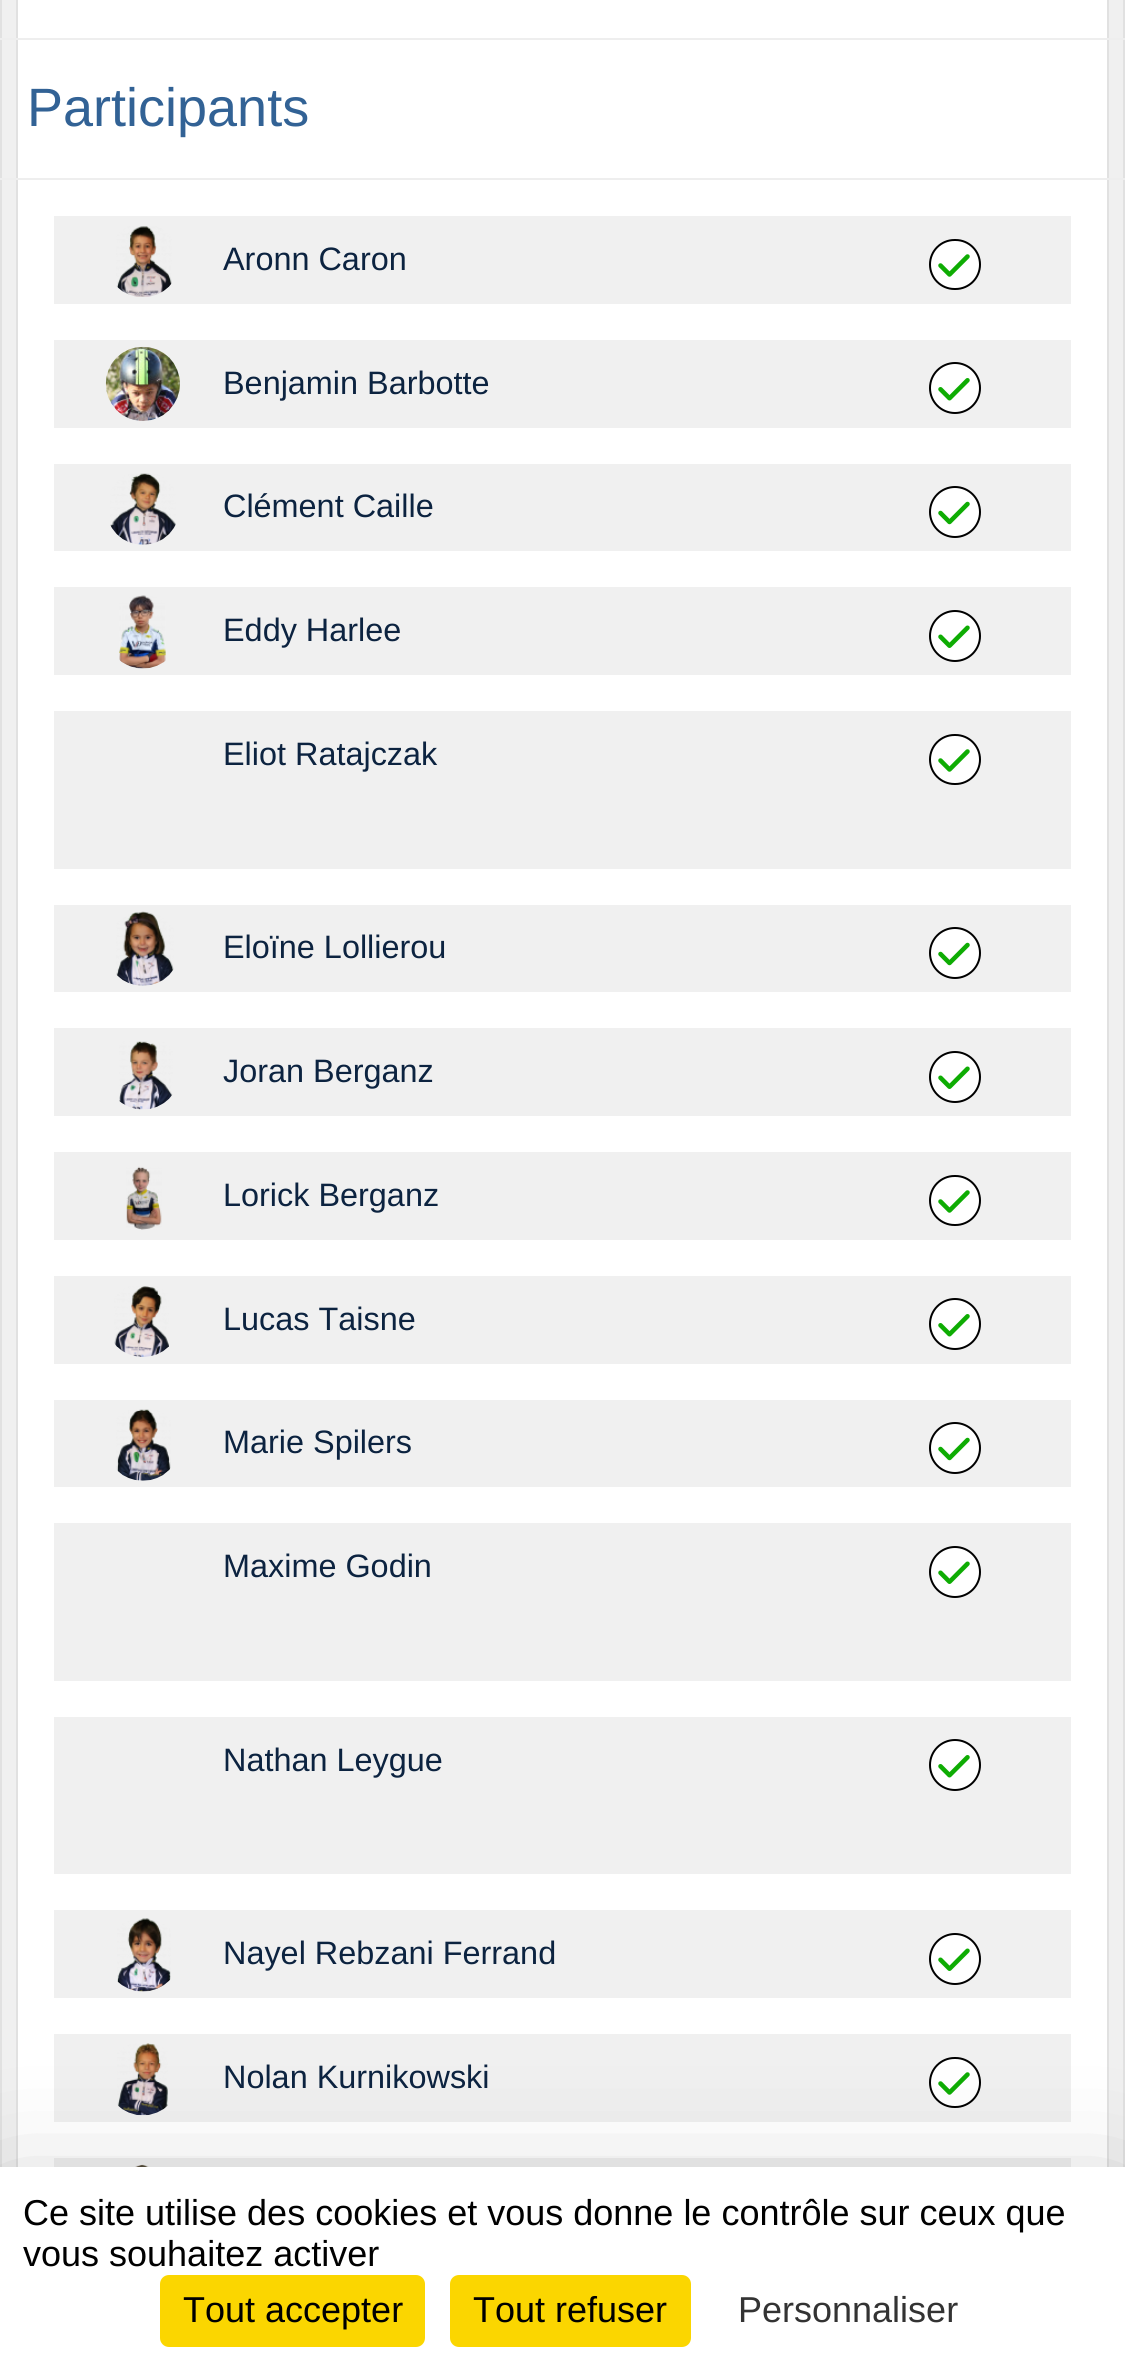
import math
import cairo

surface = cairo.ImageSurface(cairo.FORMAT_RGB24, 1125, 2369)
ctx = cairo.Context(surface)
options = cairo.FontOptions()
options.set_hint_metrics(cairo.HINT_METRICS_OFF)
options.set_hint_style(cairo.HINT_STYLE_NONE)
ctx.set_font_options(options)
ctx.set_miter_limit(4)


def round_rect(x, y, w, h, r):
    ctx.new_sub_path()
    for i, (u, v) in enumerate([(x + w - r, y + h - r), (x + r, y + h - r), (x + r, y + r), (x + w - r, y + r)]):
        ctx.arc(u, v, r, i * math.pi / 2, (i + 1) * math.pi / 2)
    ctx.close_path()


def shadow(x, y, w, h, r, blur, alpha):
    ctx.push_group_with_content(cairo.CONTENT_ALPHA)
    ctx.set_operator(cairo.OPERATOR_SOURCE)
    for i in range(15, -16, -2):
        e = blur * i / 6
        if min(w, h) + 2 * e > 0:
            ctx.set_source_rgba(0, 0, 0, alpha * math.erfc((i - 1) / 8.5) / 2)
            round_rect(x - e, y - e, w + 2 * e, h + 2 * e, max(0, min(r + e + blur * .6, min(w, h) / 2 + e)))
            ctx.fill()
    ctx.mask(ctx.pop_group())


def picture(path, x, y, w, h):
    ctx.save()
    ctx.set_source_surface(cairo.ImageSurface.create_from_png(path), x, y)
    ctx.rectangle(x, y, w, h)
    ctx.fill()
    ctx.restore()


ctx.set_source_rgb(0.941, 0.941, 0.941)
ctx.paint()
ctx.rectangle(1, -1, 1123, 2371)
ctx.set_source_rgb(0.882, 0.882, 0.882)
ctx.stroke()
ctx.set_source_rgb(1, 1, 1)
ctx.rectangle(18, 0, 1089, 2167)
ctx.fill()
ctx.rectangle(17, -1, 1091, 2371)
ctx.set_source_rgb(0.882, 0.882, 0.882)
ctx.stroke()
ctx.set_source_rgb(0.933, 0.933, 0.933)
ctx.rectangle(0, 38, 1125, 2)
ctx.fill()
ctx.rectangle(0, 178, 1125, 2)
ctx.fill()
ctx.select_font_face("Liberation Sans")
ctx.set_font_size(54)
ctx.set_source_rgb(0.196, 0.384, 0.584)
ctx.move_to(27, 126)
ctx.show_text("Participants")
ctx.set_source_rgb(0.941, 0.941, 0.941)
ctx.rectangle(54, 216, 1017, 88)
ctx.fill()
picture("img1.png", 116, 226, 56, 71)
ctx.set_font_size(32.4)
ctx.set_source_rgb(0.047, 0.137, 0.251)
ctx.move_to(223, 270)
ctx.show_text("Aronn Caron")
ctx.set_source_rgb(1, 1, 1)
round_rect(930, 240, 50, 49, 24.5)
ctx.fill_preserve()
ctx.set_source_rgb(0, 0, 0)
ctx.stroke()
picture("img2.png", 938, 254, 32, 23)
ctx.set_source_rgb(0.941, 0.941, 0.941)
ctx.rectangle(54, 340, 1017, 88)
ctx.fill()
picture("img3.png", 105, 346, 75, 75)
ctx.set_source_rgb(0.047, 0.137, 0.251)
ctx.move_to(223, 394)
ctx.show_text("Benjamin Barbotte")
ctx.set_source_rgb(1, 1, 1)
ctx.new_path()
ctx.arc(955, 388, 25, 0, 2 * math.pi)
ctx.fill_preserve()
ctx.set_source_rgb(0, 0, 0)
ctx.stroke()
picture("img4.png", 938, 378, 32, 23)
ctx.set_source_rgb(0.941, 0.941, 0.941)
ctx.rectangle(54, 464, 1017, 87)
ctx.fill()
picture("img5.png", 110, 473, 66, 72)
ctx.set_source_rgb(0.047, 0.137, 0.251)
ctx.move_to(223, 517)
ctx.show_text("Clément Caille")
ctx.set_source_rgb(1, 1, 1)
ctx.new_path()
ctx.arc(955, 512, 25, 0, 2 * math.pi)
ctx.fill_preserve()
ctx.set_source_rgb(0, 0, 0)
ctx.stroke()
picture("img6.png", 938, 501, 32, 24)
ctx.set_source_rgb(0.941, 0.941, 0.941)
ctx.rectangle(54, 587, 1017, 88)
ctx.fill()
picture("img7.png", 119, 595, 47, 74)
ctx.set_source_rgb(0.047, 0.137, 0.251)
ctx.move_to(223, 641)
ctx.show_text("Eddy Harlee")
ctx.set_source_rgb(1, 1, 1)
ctx.new_path()
ctx.arc(955, 636, 25, 0, 2 * math.pi)
ctx.fill_preserve()
ctx.set_source_rgb(0, 0, 0)
ctx.stroke()
picture("img8.png", 938, 625, 32, 23)
ctx.set_source_rgb(0.941, 0.941, 0.941)
ctx.rectangle(54, 711, 1017, 158)
ctx.fill()
ctx.set_source_rgb(0.047, 0.137, 0.251)
ctx.move_to(223, 765)
ctx.show_text("Eliot Ratajczak")
ctx.set_source_rgb(1, 1, 1)
round_rect(930, 735, 50, 49, 24.5)
ctx.fill_preserve()
ctx.set_source_rgb(0, 0, 0)
ctx.stroke()
picture("img2.png", 938, 749, 32, 23)
ctx.set_source_rgb(0.941, 0.941, 0.941)
ctx.rectangle(54, 905, 1017, 87)
ctx.fill()
picture("img9.png", 116, 911, 58, 75)
ctx.set_source_rgb(0.047, 0.137, 0.251)
ctx.move_to(223, 958)
ctx.show_text("Eloïne Lollierou")
ctx.set_source_rgb(1, 1, 1)
ctx.new_path()
ctx.arc(955, 953, 25, 0, 2 * math.pi)
ctx.fill_preserve()
ctx.set_source_rgb(0, 0, 0)
ctx.stroke()
picture("img6.png", 938, 942, 32, 24)
ctx.set_source_rgb(0.941, 0.941, 0.941)
ctx.rectangle(54, 1028, 1017, 88)
ctx.fill()
picture("img10.png", 119, 1041, 54, 69)
ctx.set_source_rgb(0.047, 0.137, 0.251)
ctx.move_to(223, 1082)
ctx.show_text("Joran Berganz")
ctx.set_source_rgb(1, 1, 1)
ctx.new_path()
ctx.arc(955, 1077, 25, 0, 2 * math.pi)
ctx.fill_preserve()
ctx.set_source_rgb(0, 0, 0)
ctx.stroke()
picture("img8.png", 938, 1066, 32, 23)
ctx.set_source_rgb(0.941, 0.941, 0.941)
ctx.rectangle(54, 1152, 1017, 88)
ctx.fill()
picture("img11.png", 126, 1166, 36, 64)
ctx.set_source_rgb(0.047, 0.137, 0.251)
ctx.move_to(223, 1206)
ctx.show_text("Lorick Berganz")
ctx.set_source_rgb(1, 1, 1)
round_rect(930, 1176, 50, 49, 24.5)
ctx.fill_preserve()
ctx.set_source_rgb(0, 0, 0)
ctx.stroke()
picture("img2.png", 938, 1190, 32, 23)
ctx.set_source_rgb(0.941, 0.941, 0.941)
ctx.rectangle(54, 1276, 1017, 88)
ctx.fill()
picture("img12.png", 114, 1286, 55, 71)
ctx.set_source_rgb(0.047, 0.137, 0.251)
ctx.move_to(223, 1330)
ctx.show_text("Lucas Taisne")
ctx.set_source_rgb(1, 1, 1)
ctx.new_path()
ctx.arc(955, 1324, 25, 0, 2 * math.pi)
ctx.fill_preserve()
ctx.set_source_rgb(0, 0, 0)
ctx.stroke()
picture("img4.png", 938, 1314, 32, 23)
ctx.set_source_rgb(0.941, 0.941, 0.941)
ctx.rectangle(54, 1400, 1017, 87)
ctx.fill()
picture("img13.png", 116, 1409, 55, 72)
ctx.set_source_rgb(0.047, 0.137, 0.251)
ctx.move_to(223, 1453)
ctx.show_text("Marie Spilers")
ctx.set_source_rgb(1, 1, 1)
ctx.new_path()
ctx.arc(955, 1448, 25, 0, 2 * math.pi)
ctx.fill_preserve()
ctx.set_source_rgb(0, 0, 0)
ctx.stroke()
picture("img6.png", 938, 1437, 32, 24)
ctx.set_source_rgb(0.941, 0.941, 0.941)
ctx.rectangle(54, 1523, 1017, 158)
ctx.fill()
ctx.set_source_rgb(0.047, 0.137, 0.251)
ctx.move_to(223, 1577)
ctx.show_text("Maxime Godin")
ctx.set_source_rgb(1, 1, 1)
ctx.new_path()
ctx.arc(955, 1572, 25, 0, 2 * math.pi)
ctx.fill_preserve()
ctx.set_source_rgb(0, 0, 0)
ctx.stroke()
picture("img8.png", 938, 1561, 32, 23)
ctx.set_source_rgb(0.941, 0.941, 0.941)
ctx.rectangle(54, 1717, 1017, 157)
ctx.fill()
ctx.set_source_rgb(0.047, 0.137, 0.251)
ctx.move_to(223, 1771)
ctx.show_text("Nathan Leygue")
ctx.set_source_rgb(1, 1, 1)
ctx.new_path()
ctx.arc(955, 1765, 25, 0, 2 * math.pi)
ctx.fill_preserve()
ctx.set_source_rgb(0, 0, 0)
ctx.stroke()
picture("img4.png", 938, 1755, 32, 23)
ctx.set_source_rgb(0.941, 0.941, 0.941)
ctx.rectangle(54, 1910, 1017, 88)
ctx.fill()
picture("img14.png", 117, 1918, 54, 74)
ctx.set_source_rgb(0.047, 0.137, 0.251)
ctx.move_to(223, 1964)
ctx.show_text("Nayel Rebzani Ferrand")
ctx.set_source_rgb(1, 1, 1)
ctx.new_path()
ctx.arc(955, 1959, 25, 0, 2 * math.pi)
ctx.fill_preserve()
ctx.set_source_rgb(0, 0, 0)
ctx.stroke()
picture("img8.png", 938, 1948, 32, 23)
ctx.set_source_rgb(0.941, 0.941, 0.941)
ctx.rectangle(54, 2034, 1017, 88)
ctx.fill()
picture("img15.png", 117, 2043, 51, 73)
ctx.set_source_rgb(0.047, 0.137, 0.251)
ctx.move_to(223, 2088)
ctx.show_text("Nolan Kurnikowski")
ctx.set_source_rgb(1, 1, 1)
round_rect(930, 2058, 50, 49, 24.5)
ctx.fill_preserve()
ctx.set_source_rgb(0, 0, 0)
ctx.stroke()
picture("img2.png", 938, 2072, 32, 23)
ctx.set_source_rgb(0.941, 0.941, 0.941)
ctx.rectangle(54, 2158, 1017, 9)
ctx.fill()
picture("img16.png", 135, 2164, 14, 3)
ctx.set_source_rgb(0, 0, 0)
shadow(0, 2212, 1125, 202, 0, 67.5, 0.25)
ctx.set_source_rgb(1, 1, 1)
ctx.rectangle(0, 2167, 1125, 202)
ctx.fill()
ctx.set_font_size(36)
ctx.set_source_rgb(0, 0, 0)
ctx.move_to(23, 2225)
ctx.show_text("Ce site utilise des cookies et vous donne le contrôle sur ceux que")
ctx.move_to(23, 2266)
ctx.show_text("vous souhaitez activer")
ctx.set_source_rgb(0.984, 0.839, 0)
round_rect(160, 2275, 265, 72, 9)
ctx.fill()
ctx.set_source_rgb(0, 0, 0)
ctx.move_to(183, 2322)
ctx.show_text("Tout accepter")
ctx.set_source_rgb(0.984, 0.839, 0)
round_rect(450, 2275, 241, 72, 9)
ctx.fill()
ctx.set_source_rgb(0, 0, 0)
ctx.move_to(473, 2322)
ctx.show_text("Tout refuser")
ctx.set_source_rgb(0.2, 0.2, 0.2)
ctx.move_to(738, 2322)
ctx.show_text("Personnaliser")
surface.write_to_png("page.png")
